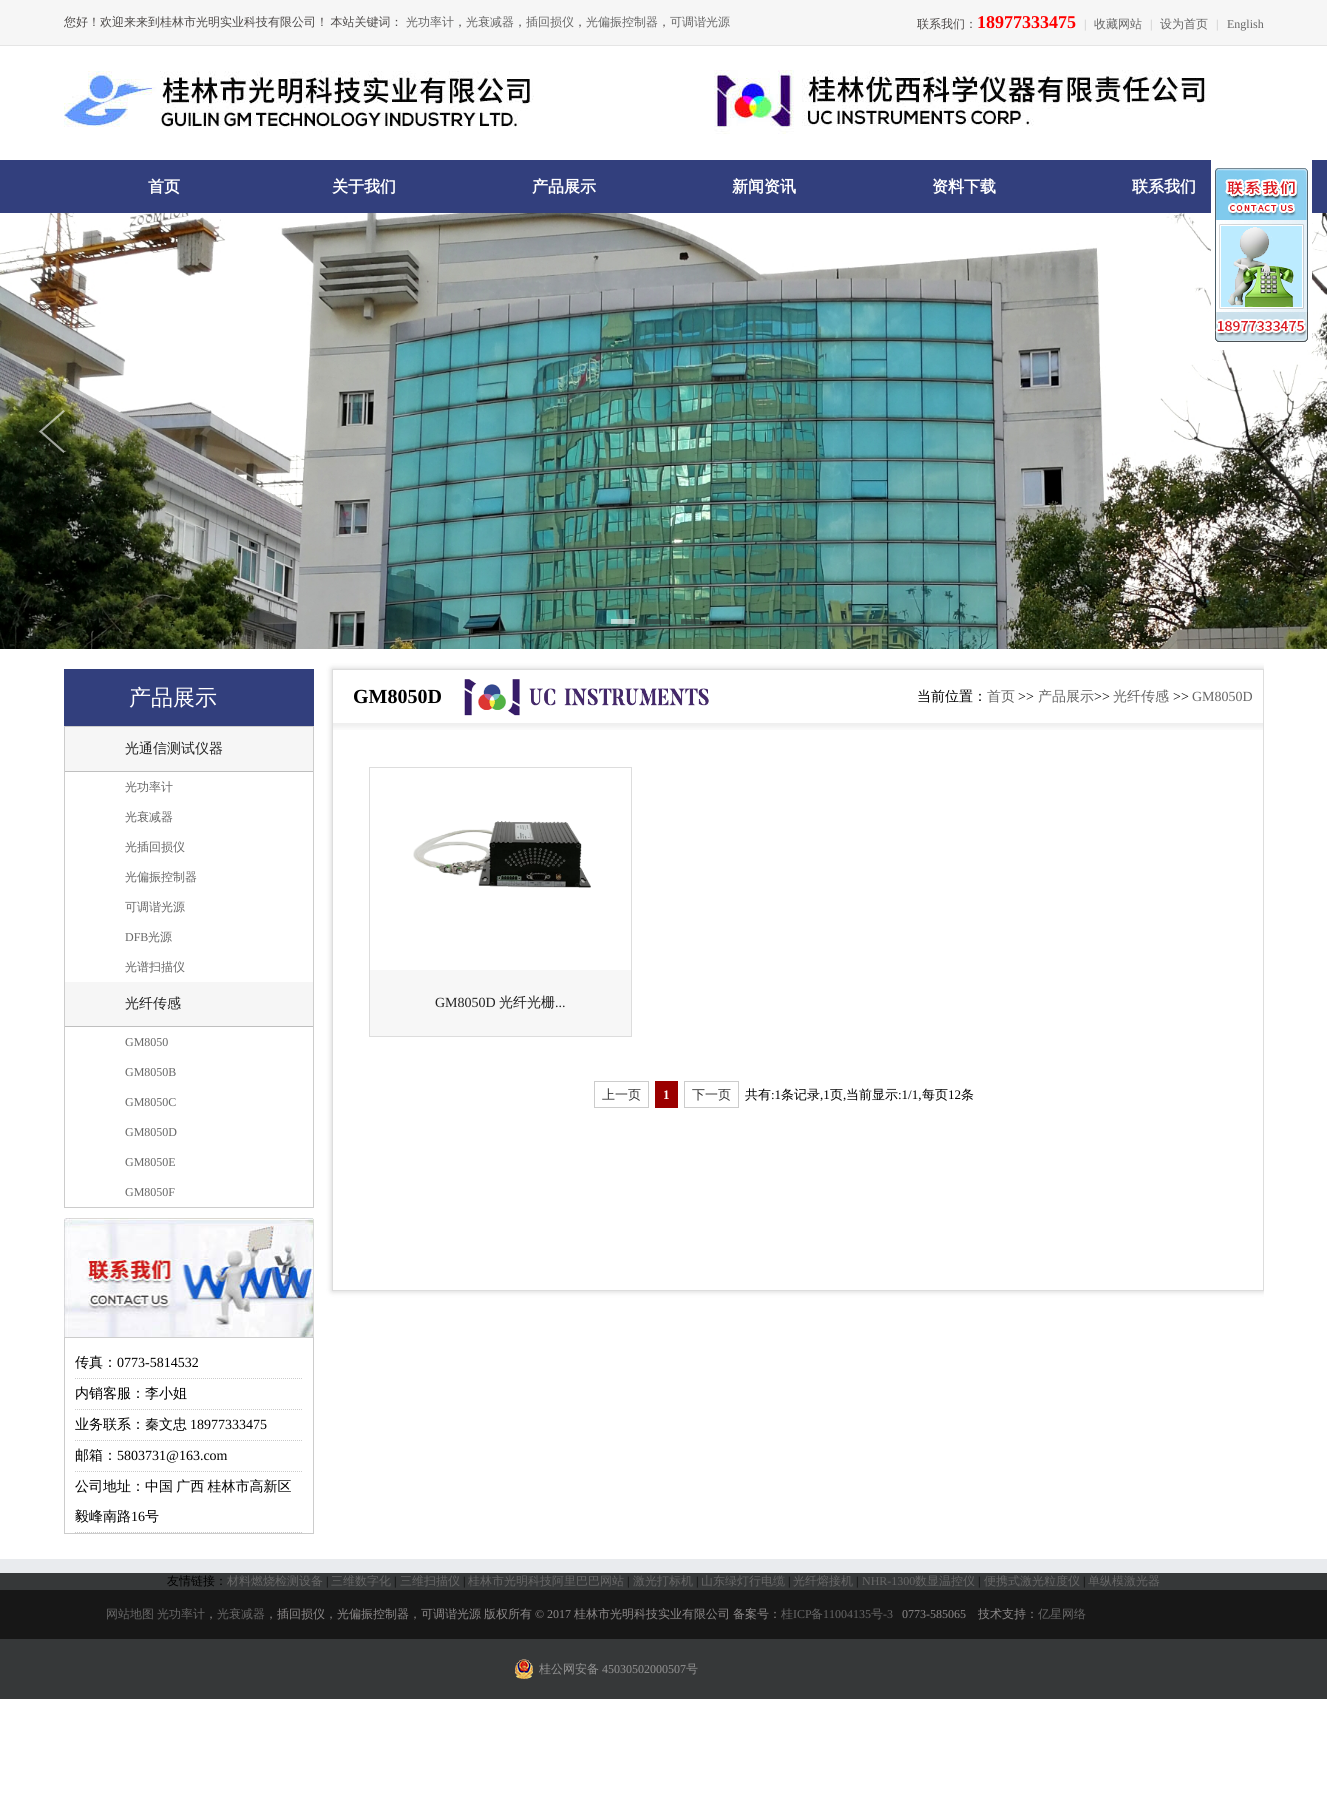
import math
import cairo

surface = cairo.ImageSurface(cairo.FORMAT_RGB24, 1327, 1806)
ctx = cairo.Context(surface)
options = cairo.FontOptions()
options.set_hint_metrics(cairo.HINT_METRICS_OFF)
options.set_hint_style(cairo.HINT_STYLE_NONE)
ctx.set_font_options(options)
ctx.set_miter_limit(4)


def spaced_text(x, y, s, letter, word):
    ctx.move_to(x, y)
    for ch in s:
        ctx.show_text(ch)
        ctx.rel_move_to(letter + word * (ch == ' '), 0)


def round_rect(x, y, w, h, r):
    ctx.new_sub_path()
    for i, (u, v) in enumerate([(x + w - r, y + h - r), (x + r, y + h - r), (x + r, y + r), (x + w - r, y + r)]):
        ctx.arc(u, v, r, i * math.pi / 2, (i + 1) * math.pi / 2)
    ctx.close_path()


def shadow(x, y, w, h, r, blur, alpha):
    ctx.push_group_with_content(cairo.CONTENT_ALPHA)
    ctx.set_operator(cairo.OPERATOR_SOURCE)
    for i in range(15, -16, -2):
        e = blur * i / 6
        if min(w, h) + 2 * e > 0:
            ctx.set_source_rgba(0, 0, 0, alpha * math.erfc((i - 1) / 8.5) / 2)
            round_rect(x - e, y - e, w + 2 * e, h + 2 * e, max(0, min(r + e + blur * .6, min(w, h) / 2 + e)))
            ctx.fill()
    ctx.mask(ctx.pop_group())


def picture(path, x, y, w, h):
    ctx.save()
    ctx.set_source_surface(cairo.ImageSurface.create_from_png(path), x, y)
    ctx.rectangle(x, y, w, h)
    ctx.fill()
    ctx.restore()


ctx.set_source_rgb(1, 1, 1)
ctx.paint()
ctx.set_source_rgb(0.961, 0.961, 0.961)
ctx.rectangle(0, 0, 1327, 45)
ctx.fill()
ctx.set_source_rgb(0.898, 0.898, 0.898)
ctx.rectangle(0, 45, 1327, 1)
ctx.fill()
ctx.select_font_face("WenQuanYi Zen Hei Medium")
ctx.set_font_size(12)
ctx.set_source_rgb(0.298, 0.286, 0.282)
spaced_text(64, 26, "您好！欢迎来来到桂林市光明实业科技有限公司！ 本站关键词：", 0, -1)
ctx.set_source_rgb(0.4, 0.4, 0.4)
ctx.move_to(406, 26)
ctx.show_text("光功率计")
ctx.set_source_rgb(0.298, 0.286, 0.282)
ctx.move_to(454, 26)
ctx.show_text("，")
ctx.set_source_rgb(0.4, 0.4, 0.4)
ctx.move_to(466, 26)
ctx.show_text("光衰减器")
ctx.set_source_rgb(0.298, 0.286, 0.282)
ctx.move_to(514, 26)
ctx.show_text("，")
ctx.set_source_rgb(0.4, 0.4, 0.4)
ctx.move_to(526, 26)
ctx.show_text("插回损仪")
ctx.set_source_rgb(0.298, 0.286, 0.282)
ctx.move_to(574, 26)
ctx.show_text("，")
ctx.set_source_rgb(0.4, 0.4, 0.4)
ctx.move_to(586, 26)
ctx.show_text("光偏振控制器")
ctx.set_source_rgb(0.298, 0.286, 0.282)
ctx.move_to(658, 26)
ctx.show_text("，")
ctx.set_source_rgb(0.4, 0.4, 0.4)
ctx.move_to(670, 26)
ctx.show_text("可调谐光源")
ctx.set_source_rgb(0.298, 0.286, 0.282)
ctx.move_to(917, 28)
ctx.show_text("联系我们：")
ctx.select_font_face("Liberation Serif", cairo.FONT_SLANT_NORMAL, cairo.FONT_WEIGHT_BOLD)
ctx.set_font_size(18)
ctx.set_source_rgb(1, 0, 0)
ctx.move_to(977, 28)
ctx.show_text("18977333475")
ctx.select_font_face("Liberation Serif")
ctx.set_font_size(12)
ctx.set_source_rgb(0.749, 0.749, 0.749)
ctx.move_to(1084, 28)
ctx.show_text("|")
ctx.select_font_face("WenQuanYi Zen Hei Medium")
ctx.set_source_rgb(0.4, 0.4, 0.4)
ctx.move_to(1094, 28)
ctx.show_text("收藏网站")
ctx.select_font_face("Liberation Serif")
ctx.set_source_rgb(0.749, 0.749, 0.749)
ctx.move_to(1150, 28)
ctx.show_text("|")
ctx.select_font_face("WenQuanYi Zen Hei Medium")
ctx.set_source_rgb(0.4, 0.4, 0.4)
ctx.move_to(1160, 28)
ctx.show_text("设为首页")
ctx.select_font_face("Liberation Serif")
ctx.set_source_rgb(0.749, 0.749, 0.749)
ctx.move_to(1216, 28)
ctx.show_text("|")
ctx.set_source_rgb(0.4, 0.4, 0.4)
ctx.move_to(1227, 28)
ctx.show_text("English")
picture("img1.png", 64, 71, 470, 56)
picture("img2.png", 714, 70, 496, 64)
ctx.set_source_rgb(0.196, 0.247, 0.49)
ctx.rectangle(0, 160, 1327, 53)
ctx.fill()
ctx.select_font_face("WenQuanYi Zen Hei", cairo.FONT_SLANT_NORMAL, cairo.FONT_WEIGHT_BOLD)
ctx.set_font_size(16)
ctx.set_source_rgb(1, 1, 1)
ctx.move_to(148, 192)
ctx.show_text("首页")
ctx.move_to(332, 192)
ctx.show_text("关于我们")
ctx.move_to(532, 192)
ctx.show_text("产品展示")
ctx.move_to(732, 192)
ctx.show_text("新闻资讯")
ctx.move_to(932, 192)
ctx.show_text("资料下载")
ctx.move_to(1132, 192)
ctx.show_text("联系我们")
picture("img3.png", 0, 213, 1327, 436)
picture("img4.png", 39, 410, 26, 43)
picture("img5.png", 1262, 412, 26, 41)
ctx.set_source_rgba(1, 1, 1, 0.6)
ctx.rectangle(611, 619, 24, 5)
ctx.fill()
ctx.set_source_rgba(0.2, 0.2, 0.2, 0.6)
ctx.rectangle(646, 619, 24, 5)
ctx.fill()
ctx.rectangle(681, 619, 24, 5)
ctx.fill()
ctx.set_source_rgb(0.196, 0.247, 0.49)
ctx.rectangle(64, 669, 250, 57)
ctx.fill()
ctx.select_font_face("WenQuanYi Zen Hei Medium")
ctx.set_font_size(22)
ctx.set_source_rgb(1, 1, 1)
ctx.move_to(129, 705)
ctx.show_text("产品展示")
ctx.rectangle(64.5, 726.5, 249, 481)
ctx.set_source_rgb(0.8, 0.8, 0.8)
ctx.set_line_width(1)
ctx.stroke()
ctx.set_source_rgb(0.961, 0.961, 0.961)
ctx.rectangle(65, 727, 248, 44)
ctx.fill()
ctx.set_source_rgb(0.749, 0.749, 0.749)
ctx.rectangle(65, 771, 248, 1)
ctx.fill()
ctx.set_font_size(14)
ctx.set_source_rgb(0.137, 0.137, 0.137)
ctx.move_to(125, 753)
ctx.show_text("光通信测试仪器")
ctx.set_font_size(12)
ctx.set_source_rgb(0.4, 0.4, 0.4)
ctx.move_to(125, 791)
ctx.show_text("光功率计")
ctx.move_to(125, 821)
ctx.show_text("光衰减器")
ctx.move_to(125, 851)
ctx.show_text("光插回损仪")
ctx.move_to(125, 881)
ctx.show_text("光偏振控制器")
ctx.move_to(125, 911)
ctx.show_text("可调谐光源")
ctx.select_font_face("Liberation Serif")
ctx.move_to(125, 941)
ctx.show_text("DFB")
ctx.select_font_face("WenQuanYi Zen Hei Medium")
ctx.move_to(148, 941)
ctx.show_text("光源")
ctx.move_to(125, 971)
ctx.show_text("光谱扫描仪")
ctx.set_source_rgb(0.961, 0.961, 0.961)
ctx.rectangle(65, 982, 248, 44)
ctx.fill()
ctx.set_source_rgb(0.749, 0.749, 0.749)
ctx.rectangle(65, 1026, 248, 1)
ctx.fill()
ctx.set_font_size(14)
ctx.set_source_rgb(0.137, 0.137, 0.137)
ctx.move_to(125, 1008)
ctx.show_text("光纤传感")
ctx.select_font_face("Liberation Serif")
ctx.set_font_size(12)
ctx.set_source_rgb(0.4, 0.4, 0.4)
ctx.move_to(125, 1046)
ctx.show_text("GM8050")
ctx.move_to(125, 1076)
ctx.show_text("GM8050B")
ctx.move_to(125, 1106)
ctx.show_text("GM8050C")
ctx.move_to(125, 1136)
ctx.show_text("GM8050D")
ctx.move_to(125, 1166)
ctx.show_text("GM8050E")
ctx.move_to(125, 1196)
ctx.show_text("GM8050F")
picture("img6.png", 64, 1218, 250, 119)
ctx.rectangle(64.5, 1337.5, 249, 196)
ctx.set_source_rgb(0.8, 0.8, 0.8)
ctx.stroke()
ctx.new_path()
ctx.move_to(75, 1378.5)
ctx.line_to(303, 1378.5)
ctx.set_dash([1, 1])
ctx.stroke()
ctx.select_font_face("WenQuanYi Zen Hei Medium")
ctx.set_font_size(14)
ctx.set_source_rgb(0, 0, 0)
ctx.move_to(75, 1367)
ctx.show_text("传真：")
ctx.select_font_face("Liberation Serif")
ctx.move_to(117, 1367)
ctx.show_text("0773-5814532")
ctx.new_path()
ctx.move_to(75, 1409.5)
ctx.line_to(303, 1409.5)
ctx.set_source_rgb(0.8, 0.8, 0.8)
ctx.stroke()
ctx.select_font_face("WenQuanYi Zen Hei Medium")
ctx.set_source_rgb(0, 0, 0)
ctx.move_to(75, 1398)
ctx.show_text("内销客服：李小姐")
ctx.new_path()
ctx.move_to(75, 1440.5)
ctx.line_to(303, 1440.5)
ctx.set_source_rgb(0.8, 0.8, 0.8)
ctx.stroke()
ctx.set_source_rgb(0, 0, 0)
ctx.move_to(75, 1429)
ctx.show_text("业务联系：秦文忠")
ctx.select_font_face("Liberation Serif")
ctx.move_to(190, 1429)
ctx.show_text("18977333475")
ctx.new_path()
ctx.move_to(75, 1471.5)
ctx.line_to(303, 1471.5)
ctx.set_source_rgb(0.8, 0.8, 0.8)
ctx.stroke()
ctx.select_font_face("WenQuanYi Zen Hei Medium")
ctx.set_source_rgb(0, 0, 0)
ctx.move_to(75, 1460)
ctx.show_text("邮箱：")
ctx.select_font_face("Liberation Serif")
ctx.move_to(117, 1460)
ctx.show_text("5803731@163.com")
ctx.new_path()
ctx.move_to(75, 1532.5)
ctx.line_to(303, 1532.5)
ctx.set_source_rgb(0.8, 0.8, 0.8)
ctx.stroke()
ctx.select_font_face("WenQuanYi Zen Hei Medium")
ctx.set_source_rgb(0, 0, 0)
spaced_text(75, 1491, "公司地址：中国 广西 桂林市高新区", 0, -1)
ctx.move_to(75, 1521)
ctx.show_text("毅峰南路")
ctx.select_font_face("Liberation Serif")
ctx.move_to(131, 1521)
ctx.show_text("16")
ctx.select_font_face("WenQuanYi Zen Hei Medium")
ctx.move_to(145, 1521)
ctx.show_text("号")
ctx.save()
ctx.rectangle(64, 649, 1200, 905)
ctx.clip()
ctx.set_fill_rule(cairo.FILL_RULE_EVEN_ODD)
ctx.new_path()
ctx.move_to(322, 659)
ctx.line_to(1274, 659)
ctx.line_to(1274, 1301)
ctx.line_to(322, 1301)
ctx.close_path()
ctx.move_to(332, 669)
ctx.line_to(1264, 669)
ctx.line_to(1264, 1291)
ctx.line_to(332, 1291)
ctx.close_path()
ctx.clip()
ctx.set_source_rgb(0, 0, 0)
shadow(332, 669, 932, 622, 0, 3, 0.2)
ctx.restore()
ctx.rectangle(332.5, 669.5, 931, 621)
ctx.set_source_rgb(0.867, 0.867, 0.867)
ctx.set_dash([])
ctx.stroke()
picture("img7.png", 333, 723, 930, 7)
ctx.select_font_face("Liberation Serif", cairo.FONT_SLANT_NORMAL, cairo.FONT_WEIGHT_BOLD)
ctx.set_font_size(20)
ctx.set_source_rgb(0, 0, 0)
ctx.move_to(353, 703)
ctx.show_text("GM8050D")
picture("img8.png", 464, 679, 245, 37)
ctx.select_font_face("WenQuanYi Zen Hei Medium")
ctx.set_font_size(14)
ctx.move_to(917, 701)
ctx.show_text("当前位置：")
ctx.set_source_rgb(0.4, 0.4, 0.4)
ctx.move_to(987, 701)
ctx.show_text("首页")
ctx.select_font_face("Liberation Serif")
ctx.set_source_rgb(0, 0, 0)
ctx.move_to(1018, 701)
ctx.show_text(">>")
ctx.select_font_face("WenQuanYi Zen Hei Medium")
ctx.set_source_rgb(0.4, 0.4, 0.4)
ctx.move_to(1038, 701)
ctx.show_text("产品展示")
ctx.select_font_face("Liberation Serif")
ctx.set_source_rgb(0, 0, 0)
ctx.move_to(1094, 701)
ctx.show_text(">>")
ctx.select_font_face("WenQuanYi Zen Hei Medium")
ctx.set_source_rgb(0.4, 0.4, 0.4)
ctx.move_to(1113, 701)
ctx.show_text("光纤传感")
ctx.select_font_face("Liberation Serif")
ctx.set_source_rgb(0, 0, 0)
ctx.move_to(1173, 701)
ctx.show_text(">>")
ctx.set_source_rgb(0.4, 0.4, 0.4)
ctx.move_to(1192, 701)
ctx.show_text("GM8050D")
ctx.rectangle(369.5, 767.5, 262, 269)
ctx.set_source_rgb(0.867, 0.867, 0.867)
ctx.stroke()
picture("img9.png", 413, 821, 178, 67)
ctx.set_source_rgb(0.965, 0.965, 0.965)
ctx.rectangle(370, 970, 261, 66)
ctx.fill()
ctx.set_source_rgb(0.137, 0.137, 0.137)
ctx.move_to(435, 1007)
ctx.show_text("GM8050D")
ctx.select_font_face("WenQuanYi Zen Hei Medium")
ctx.move_to(499, 1007)
ctx.show_text("光纤光栅")
ctx.select_font_face("Liberation Serif")
ctx.move_to(555, 1007)
ctx.show_text("...")
ctx.rectangle(594.5, 1081.5, 54, 26)
ctx.set_source_rgb(0.8, 0.8, 0.8)
ctx.stroke()
ctx.select_font_face("WenQuanYi Zen Hei Medium")
ctx.set_font_size(13)
ctx.set_source_rgb(0.2, 0.2, 0.2)
ctx.move_to(602, 1099)
ctx.show_text("上一页")
ctx.set_source_rgb(0.608, 0, 0)
ctx.rectangle(655, 1081, 23, 27)
ctx.fill()
ctx.select_font_face("Liberation Serif", cairo.FONT_SLANT_NORMAL, cairo.FONT_WEIGHT_BOLD)
ctx.set_source_rgb(1, 1, 1)
ctx.move_to(663, 1099)
ctx.show_text("1")
ctx.rectangle(684.5, 1081.5, 54, 26)
ctx.set_source_rgb(0.8, 0.8, 0.8)
ctx.stroke()
ctx.select_font_face("WenQuanYi Zen Hei Medium")
ctx.set_source_rgb(0.2, 0.2, 0.2)
ctx.move_to(692, 1099)
ctx.show_text("下一页")
ctx.set_source_rgb(0, 0, 0)
ctx.move_to(745, 1099)
ctx.show_text("共有")
ctx.select_font_face("Liberation Serif")
ctx.move_to(771, 1099)
ctx.show_text(":1")
ctx.select_font_face("WenQuanYi Zen Hei Medium")
ctx.move_to(781, 1099)
ctx.show_text("条记录")
ctx.select_font_face("Liberation Serif")
ctx.move_to(820, 1099)
ctx.show_text(",1")
ctx.select_font_face("WenQuanYi Zen Hei Medium")
ctx.move_to(830, 1099)
ctx.show_text("页")
ctx.select_font_face("Liberation Serif")
ctx.move_to(843, 1099)
ctx.show_text(",")
ctx.select_font_face("WenQuanYi Zen Hei Medium")
ctx.move_to(846, 1099)
ctx.show_text("当前显示")
ctx.select_font_face("Liberation Serif")
ctx.move_to(898, 1099)
ctx.show_text(":1/1,")
ctx.select_font_face("WenQuanYi Zen Hei Medium")
ctx.move_to(922, 1099)
ctx.show_text("每页")
ctx.select_font_face("Liberation Serif")
ctx.move_to(948, 1099)
ctx.show_text("12")
ctx.select_font_face("WenQuanYi Zen Hei Medium")
ctx.move_to(961, 1099)
ctx.show_text("条")
ctx.set_source_rgb(0.914, 0.918, 0.933)
ctx.rectangle(0, 1559, 1327, 14)
ctx.fill()
ctx.set_source_rgb(0.212, 0.22, 0.224)
ctx.rectangle(0, 1573, 1327, 126)
ctx.fill()
picture("img10.png", 1211, 160, 101, 190)
ctx.set_font_size(12)
ctx.set_source_rgb(0, 0, 0)
ctx.move_to(167, 1585)
ctx.show_text("友情链接：")
ctx.set_source_rgb(0.4, 0.4, 0.4)
ctx.move_to(227, 1585)
ctx.show_text("材料燃烧检测设备")
ctx.select_font_face("Liberation Serif")
ctx.set_source_rgb(0, 0, 0)
ctx.move_to(326, 1585)
ctx.show_text("|")
ctx.select_font_face("WenQuanYi Zen Hei Medium")
ctx.set_source_rgb(0.4, 0.4, 0.4)
ctx.move_to(331, 1585)
ctx.show_text("三维数字化")
ctx.select_font_face("Liberation Serif")
ctx.set_source_rgb(0, 0, 0)
ctx.move_to(394, 1585)
ctx.show_text("|")
ctx.select_font_face("WenQuanYi Zen Hei Medium")
ctx.set_source_rgb(0.4, 0.4, 0.4)
ctx.move_to(400, 1585)
ctx.show_text("三维扫描仪")
ctx.select_font_face("Liberation Serif")
ctx.set_source_rgb(0, 0, 0)
ctx.move_to(463, 1585)
ctx.show_text("|")
ctx.select_font_face("WenQuanYi Zen Hei Medium")
ctx.set_source_rgb(0.4, 0.4, 0.4)
ctx.move_to(468, 1585)
ctx.show_text("桂林市光明科技阿里巴巴网站")
ctx.select_font_face("Liberation Serif")
ctx.set_source_rgb(0, 0, 0)
ctx.move_to(627, 1585)
ctx.show_text("|")
ctx.select_font_face("WenQuanYi Zen Hei Medium")
ctx.set_source_rgb(0.4, 0.4, 0.4)
ctx.move_to(633, 1585)
ctx.show_text("激光打标机")
ctx.select_font_face("Liberation Serif")
ctx.set_source_rgb(0, 0, 0)
ctx.move_to(696, 1585)
ctx.show_text("|")
ctx.select_font_face("WenQuanYi Zen Hei Medium")
ctx.set_source_rgb(0.4, 0.4, 0.4)
ctx.move_to(701, 1585)
ctx.show_text("山东绿灯行电缆")
ctx.select_font_face("Liberation Serif")
ctx.set_source_rgb(0, 0, 0)
ctx.move_to(788, 1585)
ctx.show_text("|")
ctx.select_font_face("WenQuanYi Zen Hei Medium")
ctx.set_source_rgb(0.4, 0.4, 0.4)
ctx.move_to(793, 1585)
ctx.show_text("光纤熔接机")
ctx.select_font_face("Liberation Serif")
ctx.set_source_rgb(0, 0, 0)
ctx.move_to(856, 1585)
ctx.show_text("|")
ctx.set_source_rgb(0.4, 0.4, 0.4)
ctx.move_to(862, 1585)
ctx.show_text("NHR-1300")
ctx.select_font_face("WenQuanYi Zen Hei Medium")
ctx.move_to(915, 1585)
ctx.show_text("数显温控仪")
ctx.select_font_face("Liberation Serif")
ctx.set_source_rgb(0, 0, 0)
ctx.move_to(978, 1585)
ctx.show_text("|")
ctx.select_font_face("WenQuanYi Zen Hei Medium")
ctx.set_source_rgb(0.4, 0.4, 0.4)
ctx.move_to(984, 1585)
ctx.show_text("便携式激光粒度仪")
ctx.select_font_face("Liberation Serif")
ctx.set_source_rgb(0, 0, 0)
ctx.move_to(1083, 1585)
ctx.show_text("|")
ctx.select_font_face("WenQuanYi Zen Hei Medium")
ctx.set_source_rgb(0.4, 0.4, 0.4)
ctx.move_to(1088, 1585)
ctx.show_text("单纵模激光器")
ctx.set_source_rgb(0.09, 0.09, 0.09)
ctx.rectangle(0, 1590, 1327, 49)
ctx.fill()
ctx.set_source_rgb(0.4, 0.4, 0.4)
ctx.move_to(106, 1618)
ctx.show_text("网站地图")
ctx.move_to(157, 1618)
ctx.show_text("光功率计")
ctx.set_source_rgb(0.549, 0.537, 0.537)
ctx.move_to(205, 1618)
ctx.show_text("，")
ctx.set_source_rgb(0.4, 0.4, 0.4)
ctx.move_to(217, 1618)
ctx.show_text("光衰减器")
ctx.set_source_rgb(0.549, 0.537, 0.537)
ctx.move_to(265, 1618)
ctx.show_text("，插回损仪，光偏振控制器，可调谐光源")
ctx.move_to(484, 1618)
ctx.show_text("版权所有")
ctx.select_font_face("Liberation Serif")
ctx.move_to(535, 1618)
ctx.show_text("© 2017")
ctx.select_font_face("WenQuanYi Zen Hei Medium")
ctx.move_to(574, 1618)
ctx.show_text("桂林市光明科技实业有限公司")
ctx.move_to(733, 1618)
ctx.show_text("备案号：")
ctx.set_source_rgb(0.4, 0.4, 0.4)
ctx.move_to(781, 1618)
ctx.show_text("桂")
ctx.select_font_face("Liberation Serif")
ctx.move_to(793, 1618)
ctx.show_text("ICP")
ctx.select_font_face("WenQuanYi Zen Hei Medium")
ctx.move_to(811, 1618)
ctx.show_text("备")
ctx.select_font_face("Liberation Serif")
ctx.move_to(823, 1618)
ctx.show_text("11004135")
ctx.select_font_face("WenQuanYi Zen Hei Medium")
ctx.move_to(871, 1618)
ctx.show_text("号")
ctx.select_font_face("Liberation Serif")
ctx.move_to(883, 1618)
ctx.show_text("-3")
ctx.set_source_rgb(0.549, 0.537, 0.537)
ctx.move_to(902, 1618)
ctx.show_text("0773-585065")
ctx.select_font_face("WenQuanYi Zen Hei Medium")
ctx.move_to(978, 1618)
ctx.show_text("技术支持：")
ctx.set_source_rgb(0.4, 0.4, 0.4)
ctx.move_to(1038, 1618)
ctx.show_text("亿星网络")
picture("img11.png", 515, 1659, 18, 20)
ctx.set_source_rgb(0.576, 0.576, 0.576)
ctx.move_to(539, 1673)
ctx.show_text("桂公网安备")
ctx.select_font_face("Liberation Serif")
ctx.move_to(602, 1673)
ctx.show_text("45030502000507")
ctx.select_font_face("WenQuanYi Zen Hei Medium")
ctx.move_to(686, 1673)
ctx.show_text("号")
surface.write_to_png("page.png")
